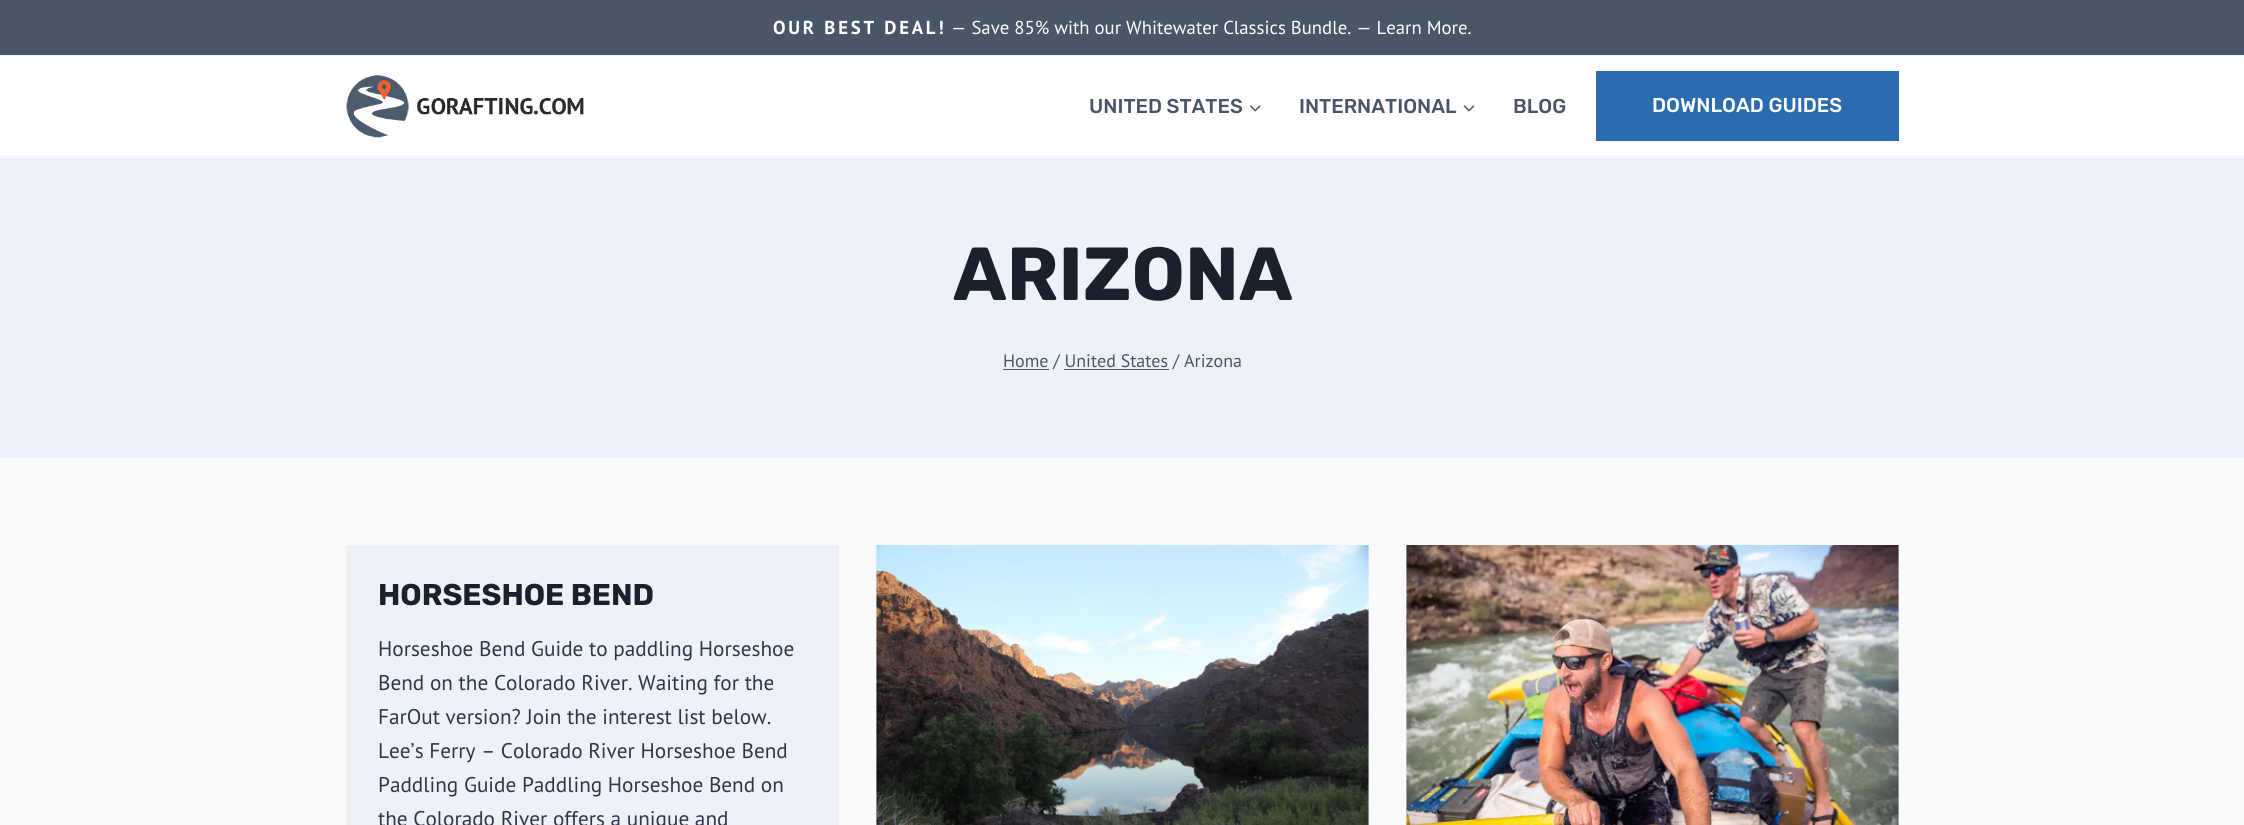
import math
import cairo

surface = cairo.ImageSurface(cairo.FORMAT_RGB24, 2244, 825)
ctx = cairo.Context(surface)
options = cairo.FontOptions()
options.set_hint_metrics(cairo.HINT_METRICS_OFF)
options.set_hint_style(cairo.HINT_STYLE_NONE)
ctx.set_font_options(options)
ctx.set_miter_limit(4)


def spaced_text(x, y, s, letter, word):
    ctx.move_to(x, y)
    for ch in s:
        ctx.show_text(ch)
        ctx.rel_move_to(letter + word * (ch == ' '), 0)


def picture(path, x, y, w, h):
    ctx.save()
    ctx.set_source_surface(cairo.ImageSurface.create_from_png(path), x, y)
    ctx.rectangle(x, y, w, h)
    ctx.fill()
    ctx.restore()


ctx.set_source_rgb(1, 1, 1)
ctx.paint()
ctx.set_source_rgb(0.29, 0.333, 0.408)
ctx.rectangle(0, 0, 2244, 55)
ctx.fill()
ctx.select_font_face("PT Sans", cairo.FONT_SLANT_NORMAL, cairo.FONT_WEIGHT_BOLD)
ctx.set_font_size(18.75)
ctx.set_source_rgb(1, 1, 1)
spaced_text(773, 34, "OUR BEST DEAL!", 2.75, 0)
ctx.select_font_face("PT Sans")
ctx.move_to(951, 34)
ctx.show_text("— Save 85% with our Whitewater Classics Bundle. — Learn More.")
ctx.set_source_rgb(0.929, 0.949, 0.969)
ctx.rectangle(0, 55, 2244, 1)
ctx.fill()
ctx.rectangle(0, 156, 2244, 1)
ctx.fill()
picture("img1.png", 346, 75, 238, 63)
ctx.select_font_face("Rubik Medium")
ctx.set_font_size(20)
ctx.set_source_rgb(0.29, 0.333, 0.408)
ctx.move_to(1089, 113)
ctx.show_text("UNITED STATES")
picture("img2.png", 1250, 105, 11, 7)
ctx.move_to(1299, 113)
ctx.show_text("INTERNATIONAL")
picture("img3.png", 1463, 105, 12, 7)
ctx.move_to(1513, 113)
ctx.show_text("BLOG")
ctx.set_source_rgb(0.169, 0.424, 0.69)
ctx.rectangle(1596, 71, 303, 70)
ctx.fill()
ctx.set_source_rgb(1, 1, 1)
ctx.move_to(1652, 112)
ctx.show_text("DOWNLOAD GUIDES")
ctx.set_source_rgb(0.929, 0.949, 0.969)
ctx.rectangle(0, 158, 2244, 300)
ctx.fill()
ctx.select_font_face("Rubik", cairo.FONT_SLANT_NORMAL, cairo.FONT_WEIGHT_BOLD)
ctx.set_font_size(75)
ctx.set_source_rgb(0.102, 0.125, 0.173)
ctx.move_to(953, 300)
ctx.show_text("ARIZONA")
ctx.set_source_rgb(0.29, 0.333, 0.408)
ctx.rectangle(1003, 369, 46, 1)
ctx.fill()
ctx.select_font_face("PT Sans")
ctx.set_font_size(18)
ctx.move_to(1003, 367)
ctx.show_text("Home / United States / Arizona")
ctx.rectangle(1064, 369, 105, 1)
ctx.fill()
ctx.set_source_rgb(0.969, 0.98, 0.988)
ctx.rectangle(0, 458, 2244, 367)
ctx.fill()
ctx.set_source_rgb(0.929, 0.949, 0.969)
ctx.rectangle(346, 545, 493, 280)
ctx.fill()
ctx.select_font_face("Rubik", cairo.FONT_SLANT_NORMAL, cairo.FONT_WEIGHT_BOLD)
ctx.set_font_size(30)
ctx.set_source_rgb(0.102, 0.125, 0.173)
ctx.move_to(378, 605)
ctx.show_text("HORSESHOE BEND")
ctx.select_font_face("PT Sans")
ctx.set_font_size(21.25)
ctx.set_source_rgb(0.176, 0.216, 0.282)
ctx.move_to(378, 656)
ctx.show_text("Horseshoe Bend Guide to paddling Horseshoe")
ctx.move_to(378, 690)
ctx.show_text("Bend on the Colorado River. Waiting for the")
ctx.move_to(378, 724)
ctx.show_text("FarOut version? Join the interest list below.")
ctx.move_to(378, 758)
ctx.show_text("Lee’s Ferry – Colorado River Horseshoe Bend")
ctx.move_to(378, 792)
ctx.show_text("Paddling Guide Paddling Horseshoe Bend on")
ctx.move_to(378, 826)
ctx.show_text("the Colorado River offers a unique and")
ctx.set_source_rgb(0.929, 0.949, 0.969)
ctx.rectangle(876, 545, 493, 280)
ctx.fill()
picture("img4.png", 876, 545, 493, 280)
ctx.rectangle(1406, 545, 493, 280)
ctx.fill()
picture("img5.png", 1406, 545, 493, 280)
surface.write_to_png("page.png")
